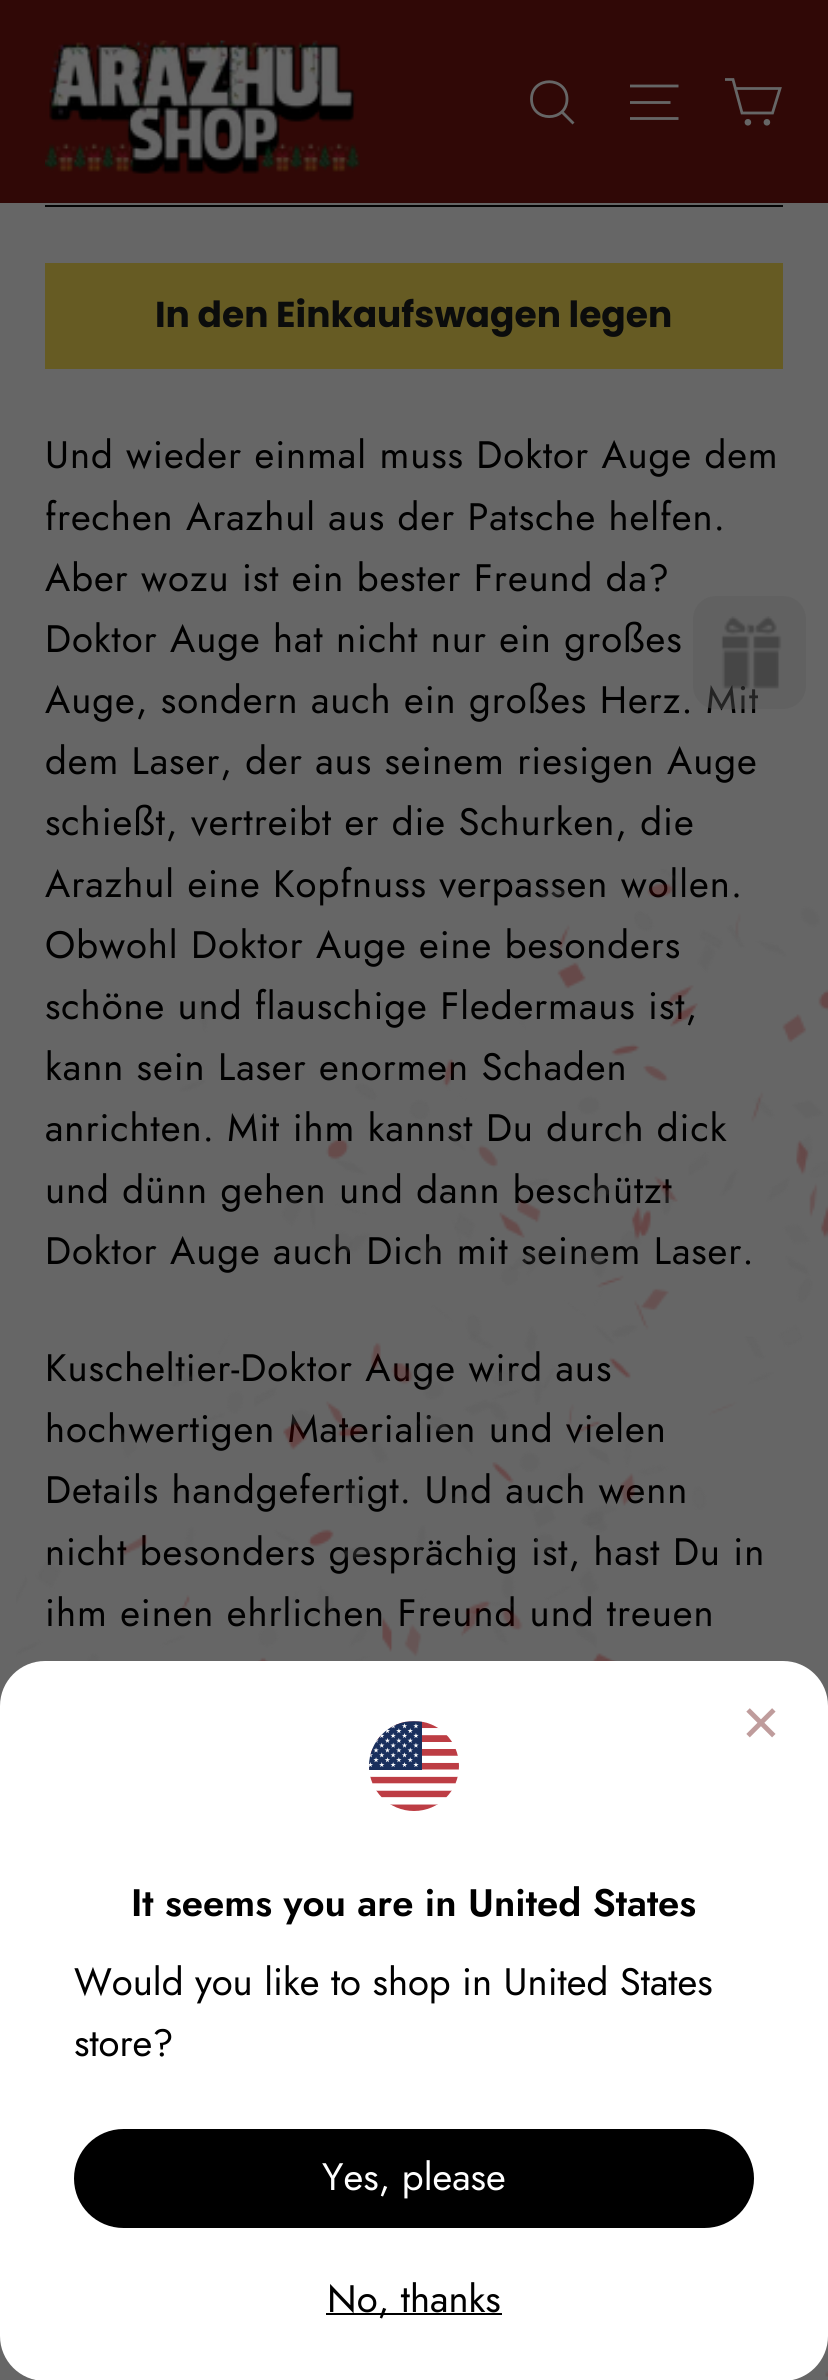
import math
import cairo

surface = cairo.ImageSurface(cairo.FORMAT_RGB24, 828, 2380)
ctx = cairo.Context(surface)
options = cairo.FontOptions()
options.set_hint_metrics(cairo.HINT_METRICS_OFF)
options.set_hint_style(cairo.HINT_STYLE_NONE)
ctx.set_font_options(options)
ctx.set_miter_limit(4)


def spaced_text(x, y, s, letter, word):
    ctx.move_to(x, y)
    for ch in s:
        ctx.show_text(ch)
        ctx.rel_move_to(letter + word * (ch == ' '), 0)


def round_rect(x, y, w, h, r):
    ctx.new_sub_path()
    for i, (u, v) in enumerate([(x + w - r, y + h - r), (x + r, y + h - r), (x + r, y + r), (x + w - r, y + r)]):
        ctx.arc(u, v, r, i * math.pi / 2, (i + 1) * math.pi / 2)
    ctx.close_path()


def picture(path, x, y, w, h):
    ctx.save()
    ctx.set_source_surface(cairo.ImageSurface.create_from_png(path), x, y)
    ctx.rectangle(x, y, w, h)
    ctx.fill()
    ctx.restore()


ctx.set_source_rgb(0.4, 0.4, 0.4)
ctx.paint()
ctx.set_source_rgb(0.188, 0.035, 0.024)
ctx.rectangle(0, 0, 828, 203)
ctx.fill()
picture("img1.png", 45, 40, 315, 134)
ctx.new_path()
ctx.move_to(567, 99)
ctx.curve_to(567, 122.5, 531.5, 122.5, 531.5, 99)
ctx.curve_to(531.5, 76, 567, 76, 567, 99)
ctx.close_path()
ctx.move_to(573.5, 123.5)
ctx.line_to(562, 112)
ctx.set_source_rgb(0.4, 0.4, 0.4)
ctx.set_line_width(2.8)
ctx.stroke()
ctx.new_path()
ctx.move_to(630, 86)
ctx.line_to(678.5, 86)
ctx.move_to(630, 102.5)
ctx.line_to(670.5, 102.5)
ctx.move_to(630, 118.5)
ctx.line_to(678.5, 118.5)
ctx.stroke()
ctx.new_path()
ctx.move_to(735.5, 88.5)
ctx.line_to(780, 88.5)
ctx.line_to(772.5, 113)
ctx.line_to(742, 113)
ctx.line_to(733, 79.5)
ctx.line_to(725, 79.5)
ctx.stroke()
ctx.arc(747.9, 122.3, 1.9, 0, 2 * math.pi)
ctx.fill_preserve()
ctx.stroke()
ctx.arc(766.9, 122.3, 1.9, 0, 2 * math.pi)
ctx.fill_preserve()
ctx.stroke()
ctx.set_source_rgb(0.016, 0.016, 0.016)
ctx.rectangle(45, 205, 738, 2)
ctx.fill()
ctx.set_source_rgb(0.4, 0.357, 0.137)
ctx.rectangle(45, 263, 738, 106)
ctx.fill()
ctx.select_font_face("Poppins", cairo.FONT_SLANT_NORMAL, cairo.FONT_WEIGHT_BOLD)
ctx.set_font_size(36)
ctx.set_source_rgb(0.043, 0.047, 0.047)
ctx.move_to(155, 327)
ctx.show_text("In den Einkaufswagen legen")
ctx.select_font_face("Jost")
ctx.set_font_size(38.25)
ctx.set_source_rgb(0, 0, 0)
spaced_text(45, 468, "Und wieder einmal muss Doktor Auge dem", 0.95, 0)
spaced_text(45, 530, "frechen Arazhul aus der Patsche helfen.", 0.95, 0)
spaced_text(45, 591, "Aber wozu ist ein bester Freund da?", 0.95, 0)
spaced_text(45, 652, "Doktor Auge hat nicht nur ein großes", 0.95, 0)
spaced_text(45, 713, "Auge, sondern auch ein großes Herz. Mit", 0.95, 0)
spaced_text(45, 774, "dem Laser, der aus seinem riesigen Auge", 0.95, 0)
spaced_text(45, 835, "schießt, vertreibt er die Schurken, die", 0.95, 0)
spaced_text(45, 897, "Arazhul eine Kopfnuss verpassen wollen.", 0.95, 0)
spaced_text(45, 958, "Obwohl Doktor Auge eine besonders", 0.95, 0)
spaced_text(45, 1019, "schöne und flauschige Fledermaus ist,", 0.95, 0)
spaced_text(45, 1080, "kann sein Laser enormen Schaden", 0.95, 0)
spaced_text(45, 1141, "anrichten. Mit ihm kannst Du durch dick", 0.95, 0)
spaced_text(45, 1203, "und dünn gehen und dann beschützt", 0.95, 0)
spaced_text(45, 1264, "Doktor Auge auch Dich mit seinem Laser.", 0.95, 0)
spaced_text(45, 1381, "Kuscheltier-Doktor Auge wird aus", 0.95, 0)
spaced_text(45, 1442, "hochwertigen Materialien und vielen", 0.95, 0)
spaced_text(45, 1503, "Details handgefertigt. Und auch wenn", 0.95, 0)
spaced_text(45, 1565, "nicht besonders gesprächig ist, hast Du in", 0.95, 0)
spaced_text(45, 1626, "ihm einen ehrlichen Freund und treuen", 0.95, 0)
ctx.set_source_rgba(0.361, 0.361, 0.361, 0.4)
round_rect(693, 596, 113, 113, 23)
ctx.fill()
picture("img2.png", 721, 616, 61, 73)
picture("img3.png", 16, 869, 812, 1508)
ctx.set_source_rgb(1, 1, 1)
round_rect(0, 1661, 828, 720, 45)
ctx.fill()
ctx.select_font_face("DejaVu Sans")
ctx.set_font_size(50)
ctx.set_source_rgb(0.749, 0.612, 0.612)
ctx.move_to(740, 1741)
ctx.show_text("✕")
picture("img4.png", 369, 1721, 90, 90)
ctx.select_font_face("Jost SemiBold")
ctx.set_font_size(38.25)
ctx.set_source_rgb(0, 0, 0)
ctx.move_to(131, 1916)
ctx.show_text("It seems you are in United States")
ctx.select_font_face("Jost")
ctx.move_to(74, 1995)
ctx.show_text("Would you like to shop in United States")
ctx.move_to(74, 2056)
ctx.show_text("store?")
round_rect(75, 2130, 678, 97, 48.5)
ctx.fill_preserve()
ctx.set_line_width(2)
ctx.stroke()
ctx.set_source_rgb(1, 1, 1)
ctx.move_to(322, 2190)
ctx.show_text("Yes, please")
ctx.set_source_rgb(0, 0, 0)
ctx.rectangle(326, 2313, 176, 2)
ctx.fill()
ctx.move_to(327, 2312)
ctx.show_text("No, thanks")
surface.write_to_png("page.png")
